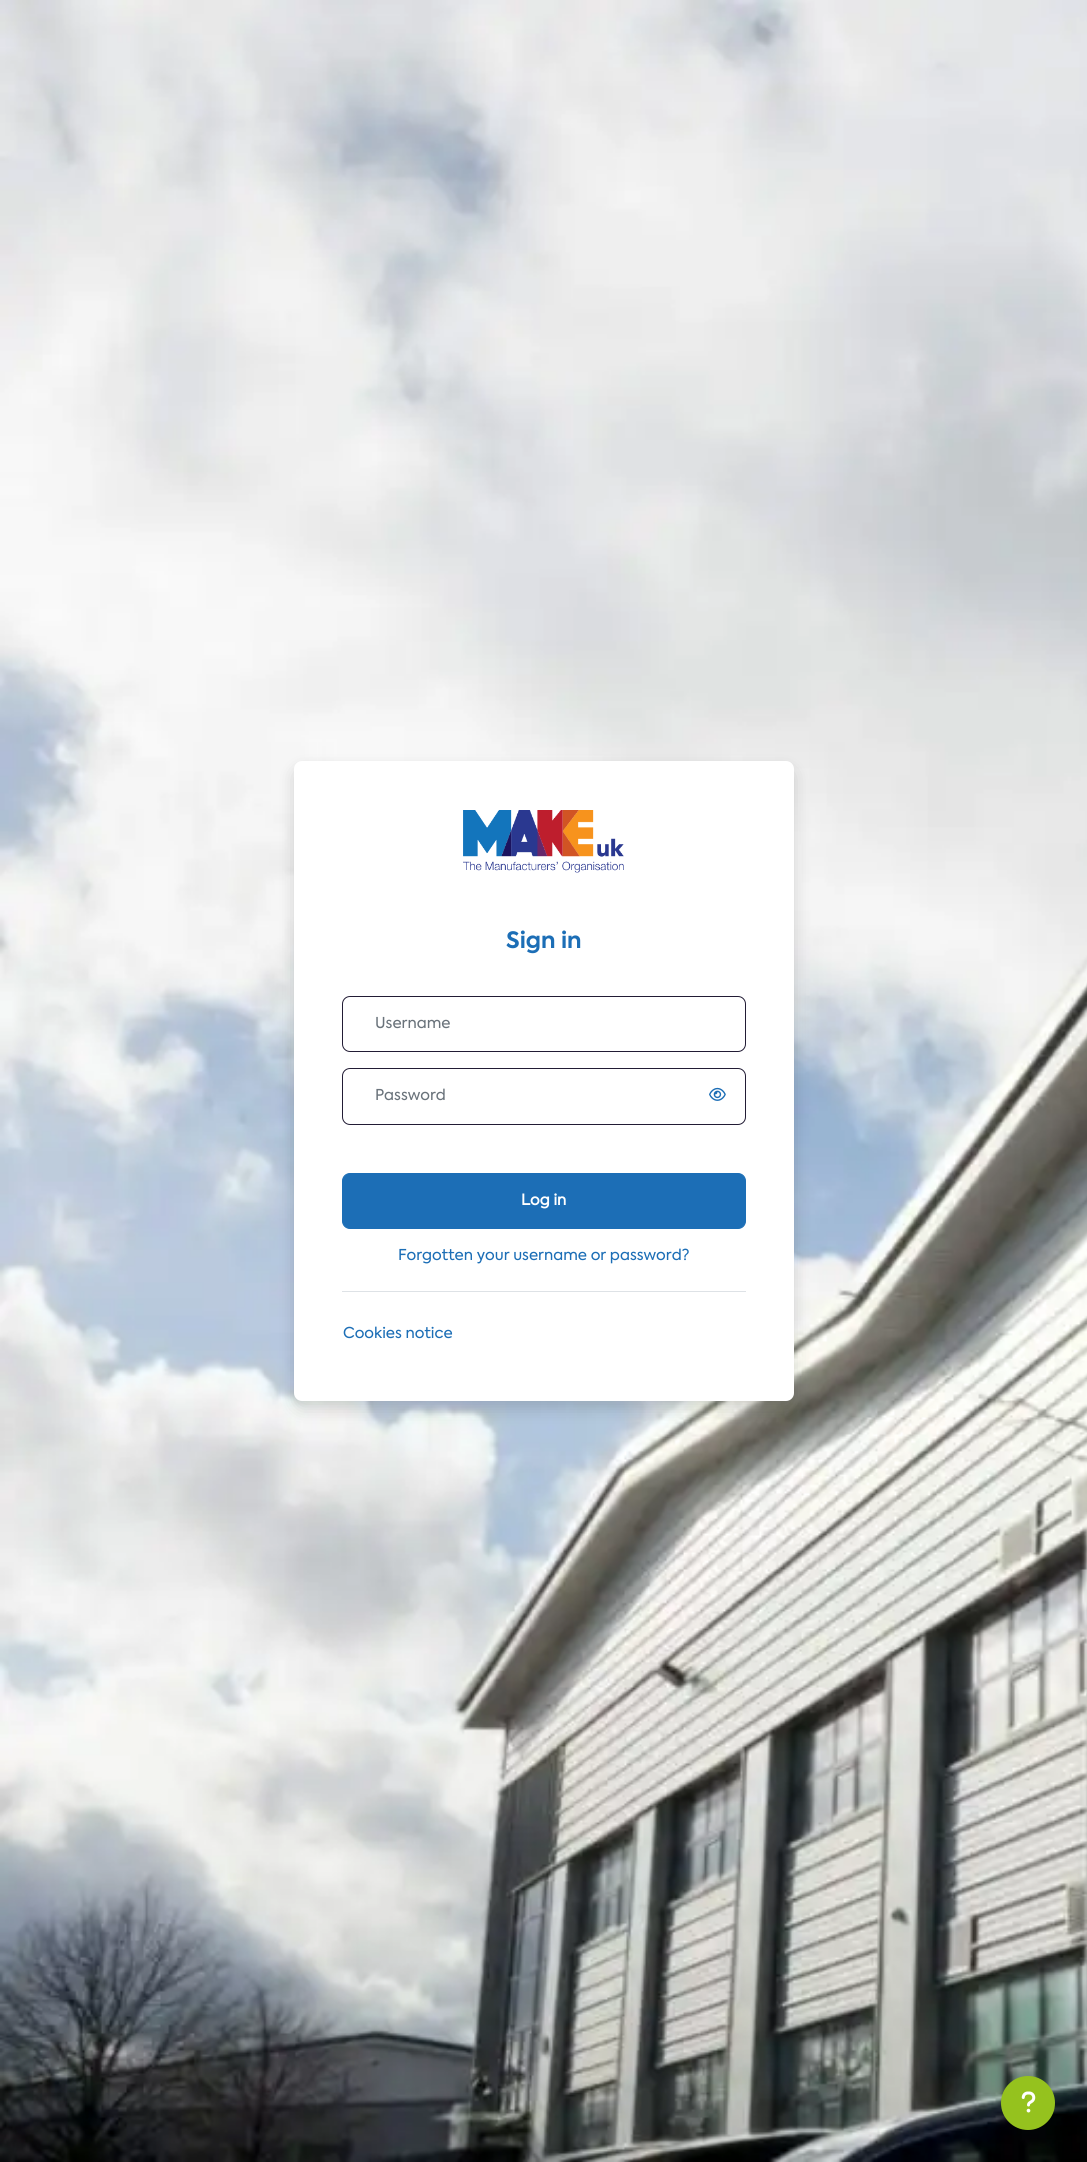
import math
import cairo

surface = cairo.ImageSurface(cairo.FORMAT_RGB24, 1087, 2162)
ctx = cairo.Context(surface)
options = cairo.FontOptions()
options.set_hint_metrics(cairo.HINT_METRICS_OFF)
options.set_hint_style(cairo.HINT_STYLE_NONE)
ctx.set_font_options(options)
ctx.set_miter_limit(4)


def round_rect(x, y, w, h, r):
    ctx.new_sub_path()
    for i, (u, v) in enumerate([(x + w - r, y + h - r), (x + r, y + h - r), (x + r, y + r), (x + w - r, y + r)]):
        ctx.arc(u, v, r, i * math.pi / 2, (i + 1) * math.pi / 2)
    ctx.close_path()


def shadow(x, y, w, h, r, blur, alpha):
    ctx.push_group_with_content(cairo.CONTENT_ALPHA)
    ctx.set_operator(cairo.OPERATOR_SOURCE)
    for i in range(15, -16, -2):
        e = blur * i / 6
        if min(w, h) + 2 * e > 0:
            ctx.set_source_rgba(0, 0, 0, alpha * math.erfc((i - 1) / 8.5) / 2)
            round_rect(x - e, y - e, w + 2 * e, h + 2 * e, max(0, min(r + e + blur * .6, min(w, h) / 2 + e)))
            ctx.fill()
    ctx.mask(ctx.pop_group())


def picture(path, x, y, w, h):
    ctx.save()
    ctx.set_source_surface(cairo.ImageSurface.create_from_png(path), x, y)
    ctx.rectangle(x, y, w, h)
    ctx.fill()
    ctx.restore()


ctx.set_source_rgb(1, 1, 1)
ctx.paint()
picture("img1.png", 0, 0, 1087, 2162)
ctx.set_source_rgb(0, 0, 0)
shadow(294, 769, 500, 640, 8, 8, 0.15)
ctx.set_source_rgb(1, 1, 1)
round_rect(294, 761, 500, 640, 8)
ctx.fill()
picture("img2.png", 463, 810, 161, 63)
ctx.select_font_face("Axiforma", cairo.FONT_SLANT_NORMAL, cairo.FONT_WEIGHT_BOLD)
ctx.set_font_size(22.5)
ctx.set_source_rgb(0.11, 0.431, 0.714)
ctx.move_to(506, 948)
ctx.show_text("Sign in")
round_rect(342.5, 996.5, 403, 55, 7.5)
ctx.set_source_rgb(0.133, 0.11, 0.208)
ctx.set_line_width(1)
ctx.stroke()
ctx.select_font_face("Axiforma")
ctx.set_font_size(15)
ctx.set_source_rgb(0.416, 0.451, 0.482)
ctx.move_to(375, 1028)
ctx.show_text("Username")
round_rect(342.5, 1068.5, 403, 56, 7.5)
ctx.set_source_rgb(0.133, 0.11, 0.208)
ctx.stroke()
ctx.set_source_rgb(0.416, 0.451, 0.482)
ctx.move_to(375, 1100)
ctx.show_text("Password")
picture("img3.png", 709, 1087, 17, 14)
ctx.set_source_rgb(0.11, 0.431, 0.714)
round_rect(342.5, 1173.5, 403, 55, 7.5)
ctx.fill_preserve()
ctx.stroke()
ctx.select_font_face("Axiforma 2", cairo.FONT_SLANT_NORMAL, cairo.FONT_WEIGHT_BOLD)
ctx.set_source_rgb(1, 1, 1)
ctx.move_to(521, 1205)
ctx.show_text("Log in")
ctx.select_font_face("Axiforma")
ctx.set_source_rgb(0.11, 0.431, 0.714)
ctx.move_to(398, 1260)
ctx.show_text("Forgotten your username or password?")
ctx.set_source_rgb(0.871, 0.886, 0.902)
ctx.rectangle(342, 1291, 404, 1)
ctx.fill()
ctx.set_source_rgb(0.11, 0.431, 0.714)
ctx.move_to(343, 1338)
ctx.show_text("Cookies notice")
ctx.set_source_rgb(0.584, 0.761, 0.118)
ctx.new_path()
ctx.arc(1028, 2103, 27, 0, 2 * math.pi)
ctx.fill()
picture("img4.png", 1021, 2091, 15, 22)
surface.write_to_png("page.png")
